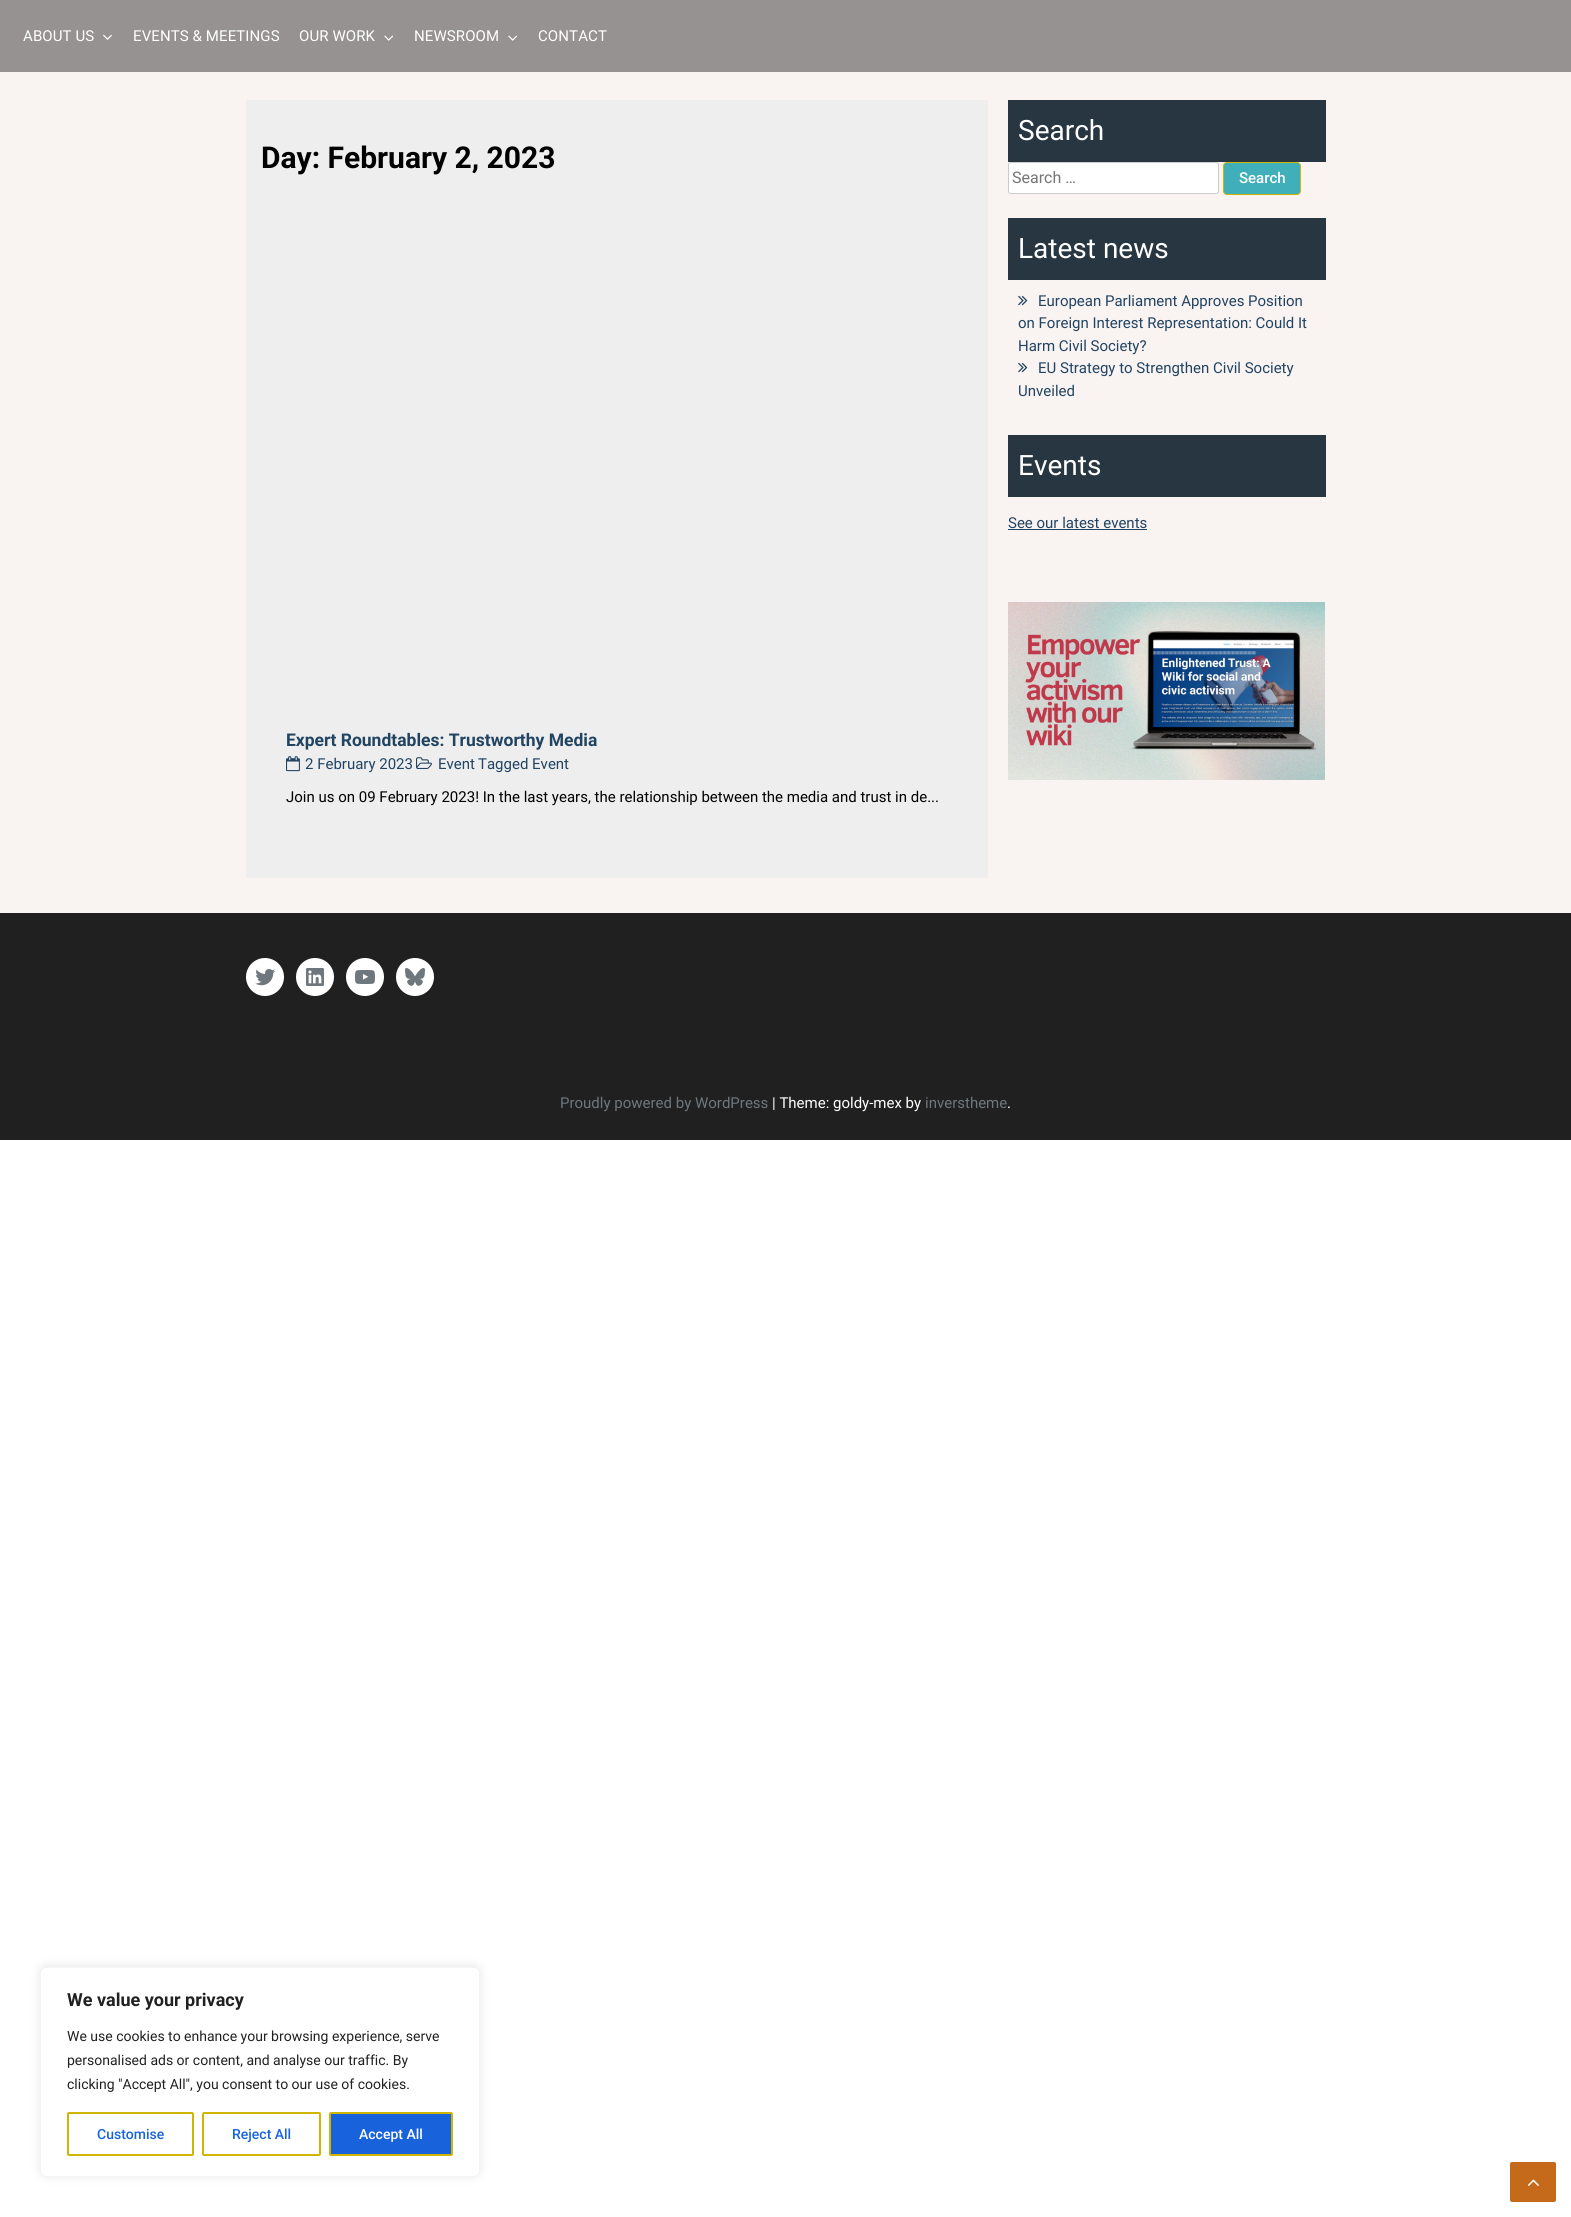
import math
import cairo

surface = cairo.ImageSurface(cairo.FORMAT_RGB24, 1571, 2217)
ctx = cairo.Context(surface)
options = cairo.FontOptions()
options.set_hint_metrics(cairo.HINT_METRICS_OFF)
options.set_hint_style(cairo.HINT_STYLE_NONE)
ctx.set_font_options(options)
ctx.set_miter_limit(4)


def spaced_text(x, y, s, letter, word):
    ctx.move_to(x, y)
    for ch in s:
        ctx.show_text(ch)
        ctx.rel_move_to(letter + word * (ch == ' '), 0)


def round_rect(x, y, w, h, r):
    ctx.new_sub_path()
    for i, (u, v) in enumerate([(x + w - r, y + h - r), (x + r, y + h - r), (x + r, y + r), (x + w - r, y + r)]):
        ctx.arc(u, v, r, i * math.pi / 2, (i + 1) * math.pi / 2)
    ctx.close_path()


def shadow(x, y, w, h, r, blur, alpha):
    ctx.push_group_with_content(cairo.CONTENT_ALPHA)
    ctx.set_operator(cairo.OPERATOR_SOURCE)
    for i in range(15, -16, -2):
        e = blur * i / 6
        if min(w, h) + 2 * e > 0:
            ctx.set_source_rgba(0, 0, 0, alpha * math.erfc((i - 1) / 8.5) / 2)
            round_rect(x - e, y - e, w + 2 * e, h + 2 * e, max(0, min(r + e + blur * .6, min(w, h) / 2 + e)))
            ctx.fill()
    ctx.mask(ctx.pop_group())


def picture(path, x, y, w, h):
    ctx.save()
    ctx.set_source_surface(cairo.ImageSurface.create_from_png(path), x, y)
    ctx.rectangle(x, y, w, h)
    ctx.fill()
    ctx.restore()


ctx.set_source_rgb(1, 1, 1)
ctx.paint()
ctx.set_source_rgb(0.584, 0.573, 0.569)
ctx.rectangle(0, 0, 1571, 72)
ctx.fill()
ctx.select_font_face("Roboto")
ctx.set_font_size(15)
ctx.set_source_rgb(1, 1, 1)
spaced_text(23, 41, "ABOUT US", 0.1, 0)
picture("img1.png", 103, 34, 9, 6)
spaced_text(133, 41, "EVENTS & MEETINGS", 0.1, 0)
spaced_text(299, 41, "OUR WORK", 0.1, 0)
picture("img2.png", 384, 35, 10, 6)
spaced_text(414, 41, "NEWSROOM", 0.1, 0)
picture("img3.png", 508, 35, 10, 6)
spaced_text(538, 41, "CONTACT", 0.1, 0)
ctx.set_source_rgb(0.976, 0.953, 0.949)
ctx.rectangle(0, 72, 1571, 841)
ctx.fill()
ctx.set_source_rgb(0.933, 0.933, 0.933)
ctx.rectangle(246, 100, 742, 778)
ctx.fill()
ctx.select_font_face("Roboto", cairo.FONT_SLANT_NORMAL, cairo.FONT_WEIGHT_BOLD)
ctx.set_font_size(30)
ctx.set_source_rgb(0, 0, 0)
ctx.move_to(261, 168)
ctx.show_text("Day: February 2, 2023")
ctx.set_font_size(17.5)
ctx.set_source_rgb(0.129, 0.267, 0.384)
ctx.move_to(286, 746)
ctx.show_text("Expert Roundtables: Trustworthy Media")
picture("img4.png", 286, 756, 14, 16)
ctx.select_font_face("Roboto")
ctx.set_font_size(15)
ctx.move_to(305, 769)
ctx.show_text("2 February 2023")
picture("img5.png", 416, 757, 16, 12)
ctx.move_to(438, 769)
ctx.show_text("Event")
ctx.move_to(478, 769)
ctx.show_text("Tagged Event")
ctx.set_source_rgb(0, 0, 0)
ctx.move_to(286, 802)
ctx.show_text("Join us on 09 February 2023! In the last years, the relationship between the media and trust in de...")
ctx.set_source_rgb(0.153, 0.212, 0.255)
ctx.rectangle(1008, 100, 318, 62)
ctx.fill()
ctx.set_font_size(28)
ctx.set_source_rgb(1, 1, 1)
ctx.move_to(1018, 140)
ctx.show_text("Search")
round_rect(1008.5, 162.5, 210, 31, 2.5)
ctx.fill_preserve()
ctx.set_source_rgb(0.8, 0.8, 0.8)
ctx.set_line_width(1)
ctx.stroke()
ctx.set_font_size(16)
ctx.set_source_rgb(0.459, 0.459, 0.459)
ctx.move_to(1012, 183)
ctx.show_text("Search …")
ctx.set_source_rgb(0.251, 0.686, 0.729)
round_rect(1223.5, 162.5, 77, 32, 3.5)
ctx.fill_preserve()
ctx.set_source_rgb(0.816, 0.71, 0.012)
ctx.stroke()
ctx.select_font_face("Roboto Medium")
ctx.set_font_size(15)
ctx.set_source_rgb(1, 1, 1)
ctx.move_to(1239, 183)
ctx.show_text("Search")
ctx.set_source_rgb(0.153, 0.212, 0.255)
ctx.rectangle(1008, 218, 318, 62)
ctx.fill()
ctx.select_font_face("Roboto")
ctx.set_font_size(28)
ctx.set_source_rgb(1, 1, 1)
ctx.move_to(1018, 258)
ctx.show_text("Latest news")
picture("img6.png", 1018, 295, 10, 11)
ctx.set_font_size(15)
ctx.set_source_rgb(0.129, 0.267, 0.384)
ctx.move_to(1038, 306)
ctx.show_text("European Parliament Approves Position")
ctx.move_to(1018, 328)
ctx.show_text("on Foreign Interest Representation: Could It")
ctx.move_to(1018, 351)
ctx.show_text("Harm Civil Society?")
picture("img6.png", 1018, 362, 10, 11)
ctx.move_to(1038, 373)
ctx.show_text("EU Strategy to Strengthen Civil Society")
ctx.move_to(1018, 396)
ctx.show_text("Unveiled")
ctx.set_source_rgb(0.153, 0.212, 0.255)
ctx.rectangle(1008, 435, 318, 62)
ctx.fill()
ctx.set_font_size(28)
ctx.set_source_rgb(1, 1, 1)
ctx.move_to(1018, 475)
ctx.show_text("Events")
ctx.set_font_size(15)
ctx.set_source_rgb(0.129, 0.267, 0.384)
ctx.move_to(1008, 528)
ctx.show_text("See our latest events")
ctx.rectangle(1008, 529, 139, 1)
ctx.fill()
picture("img7.png", 1008, 602, 317, 178)
ctx.set_source_rgb(0.125, 0.125, 0.125)
ctx.rectangle(0, 913, 1571, 227)
ctx.fill()
ctx.set_source_rgb(1, 1, 1)
ctx.arc(265, 977, 19, 0, 2 * math.pi)
ctx.fill()
picture("img8.png", 255, 969, 20, 17)
ctx.arc(315, 977, 19, 0, 2 * math.pi)
ctx.fill()
picture("img9.png", 306, 968, 18, 18)
ctx.arc(365, 977, 19, 0, 2 * math.pi)
ctx.fill()
picture("img10.png", 355, 970, 20, 14)
ctx.arc(415, 977, 19, 0, 2 * math.pi)
ctx.fill()
picture("img11.png", 405, 968, 20, 18)
ctx.set_source_rgb(0.431, 0.467, 0.49)
ctx.move_to(560, 1108)
ctx.show_text("Proudly powered by WordPress")
ctx.set_source_rgb(1, 1, 1)
ctx.move_to(772, 1108)
ctx.show_text("| Theme: goldy-mex by")
ctx.set_source_rgb(0.431, 0.467, 0.49)
ctx.move_to(925, 1108)
ctx.show_text("inverstheme")
ctx.set_source_rgb(1, 1, 1)
ctx.move_to(1007, 1108)
ctx.show_text(".")
ctx.set_source_rgb(0.773, 0.412, 0.102)
round_rect(1510, 2162, 46, 40, 2)
ctx.fill()
picture("img12.png", 1527, 2179, 12, 7)
ctx.set_source_rgb(0.675, 0.671, 0.671)
shadow(40, 1966, 440, 210, 6, 5, 0.3)
ctx.set_source_rgb(1, 1, 1)
round_rect(40.5, 1967.5, 439, 209, 5.5)
ctx.fill_preserve()
ctx.set_source_rgb(0.957, 0.957, 0.957)
ctx.stroke()
ctx.select_font_face("Roboto", cairo.FONT_SLANT_NORMAL, cairo.FONT_WEIGHT_BOLD)
ctx.set_font_size(18)
ctx.set_source_rgb(0.129, 0.129, 0.129)
ctx.move_to(67, 2006)
ctx.show_text("We value your privacy")
ctx.select_font_face("Roboto")
ctx.set_font_size(14)
ctx.move_to(67, 2041)
ctx.show_text("We use cookies to enhance your browsing experience, serve")
ctx.move_to(67, 2065)
ctx.show_text("personalised ads or content, and analyse our traffic. By")
ctx.move_to(67, 2089)
ctx.show_text("clicking \"Accept All\", you consent to our use of cookies.")
round_rect(68, 2113, 125, 42, 1)
ctx.set_source_rgb(0.816, 0.71, 0.012)
ctx.set_line_width(2)
ctx.stroke()
ctx.select_font_face("Roboto Medium")
ctx.set_source_rgb(0.094, 0.388, 0.863)
ctx.move_to(97, 2139)
ctx.show_text("Customise")
round_rect(203, 2113, 117, 42, 1)
ctx.set_source_rgb(0.816, 0.71, 0.012)
ctx.stroke()
ctx.set_source_rgb(0.094, 0.388, 0.863)
ctx.move_to(232, 2139)
ctx.show_text("Reject All")
round_rect(330, 2113, 122, 42, 1)
ctx.fill_preserve()
ctx.set_source_rgb(0.816, 0.71, 0.012)
ctx.stroke()
ctx.set_source_rgb(1, 1, 1)
ctx.move_to(359, 2139)
ctx.show_text("Accept All")
surface.write_to_png("page.png")
